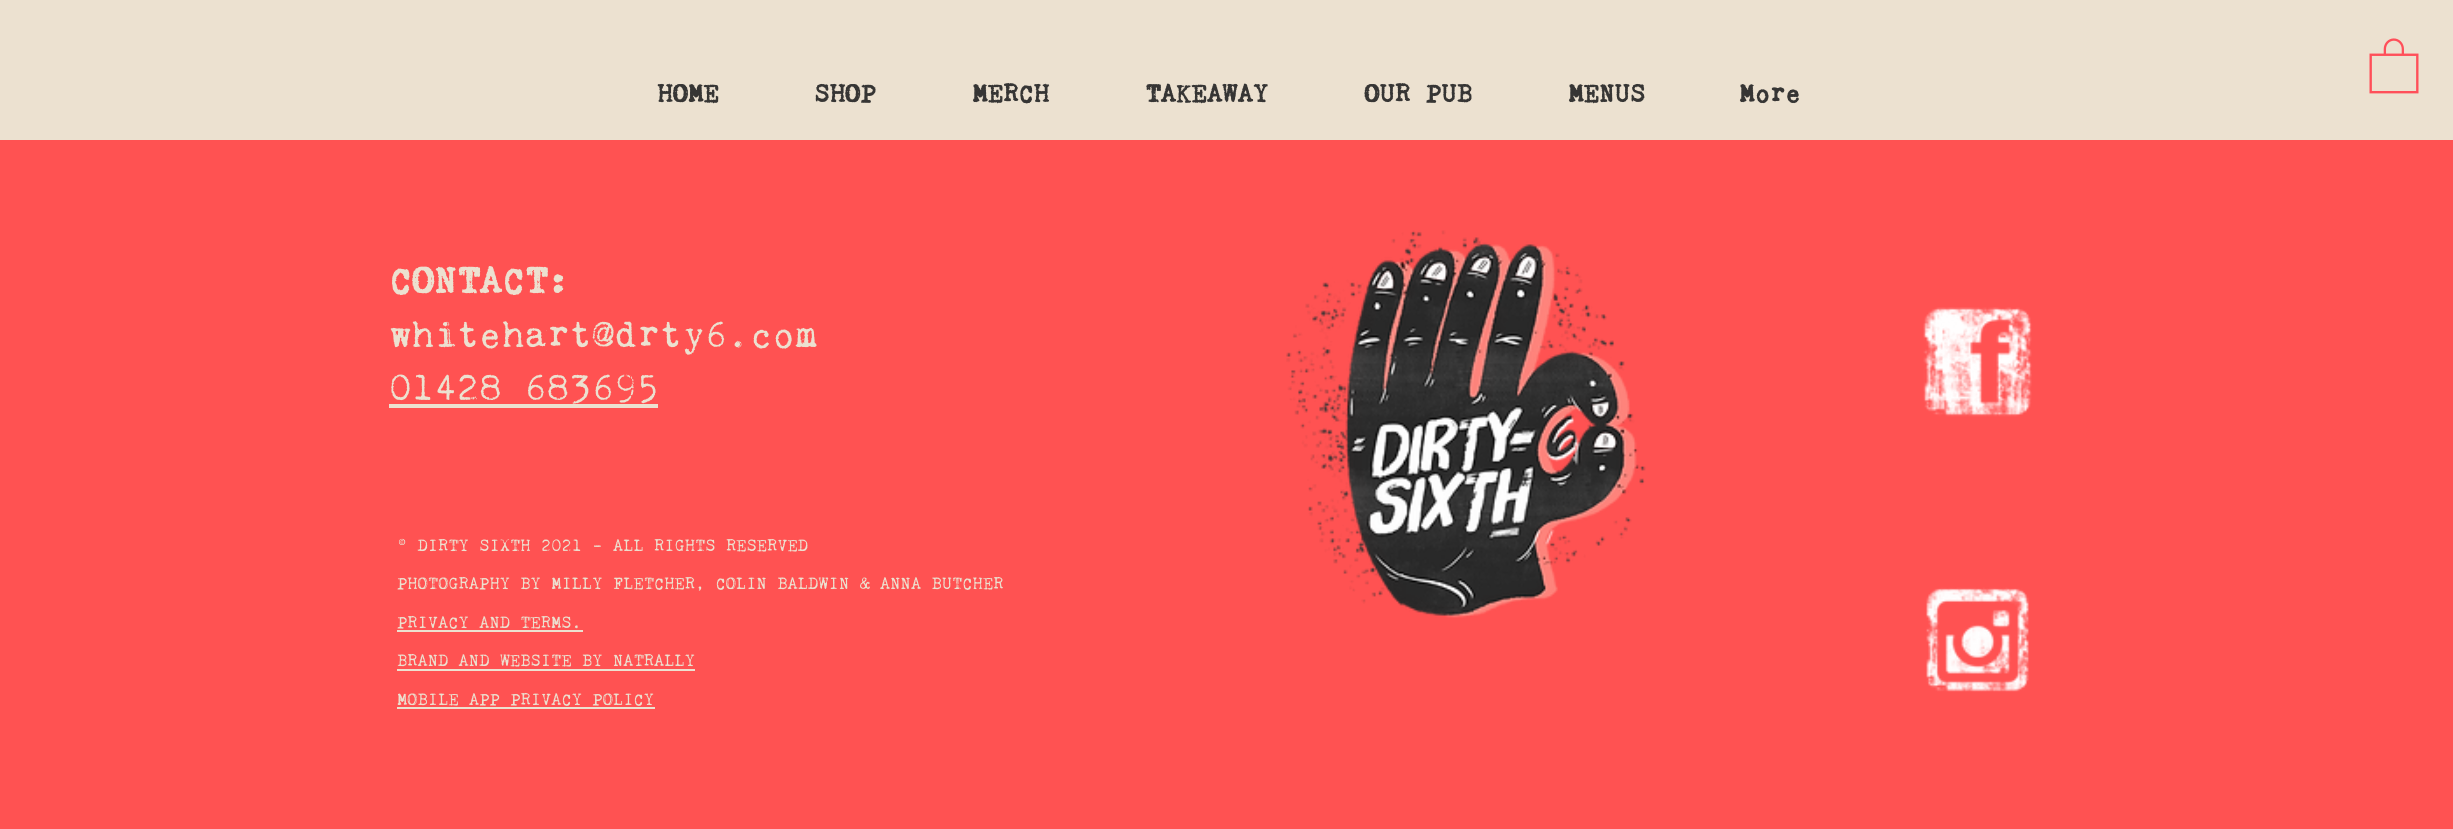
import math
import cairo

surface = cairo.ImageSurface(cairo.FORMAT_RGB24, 2453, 829)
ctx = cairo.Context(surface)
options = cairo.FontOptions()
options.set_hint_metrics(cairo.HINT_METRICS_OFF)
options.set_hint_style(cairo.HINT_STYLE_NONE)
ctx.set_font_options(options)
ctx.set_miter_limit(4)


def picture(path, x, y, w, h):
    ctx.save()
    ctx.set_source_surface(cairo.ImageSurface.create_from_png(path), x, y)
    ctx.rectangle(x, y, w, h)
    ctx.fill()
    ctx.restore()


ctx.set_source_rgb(1, 0.322, 0.322)
ctx.paint()
ctx.set_source_rgb(0.925, 0.882, 0.816)
ctx.rectangle(0, 0, 2453, 140)
ctx.fill()
ctx.select_font_face("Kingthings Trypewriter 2", cairo.FONT_SLANT_NORMAL, cairo.FONT_WEIGHT_BOLD)
ctx.set_font_size(26.25)
ctx.set_source_rgb(0.212, 0.208, 0.204)
ctx.move_to(657, 102)
ctx.show_text("HOME")
ctx.move_to(814, 102)
ctx.show_text("SHOP")
ctx.move_to(972, 102)
ctx.show_text("MERCH")
ctx.move_to(1145, 102)
ctx.show_text("TAKEAWAY")
ctx.move_to(1364, 102)
ctx.show_text("OUR PUB")
ctx.move_to(1568, 102)
ctx.show_text("MENUS")
ctx.move_to(1739, 102)
ctx.show_text("More")
picture("img1.png", 2369, 38, 50, 56)
ctx.set_font_size(38.5)
ctx.set_source_rgb(0.925, 0.882, 0.816)
ctx.move_to(389, 293)
ctx.show_text("CONTACT:")
ctx.select_font_face("Kingthings Trypewriter 2 Thin")
ctx.move_to(389, 347)
ctx.show_text("whitehart@drty6.com")
ctx.move_to(389, 400)
ctx.show_text("01428 683695")
ctx.rectangle(389, 404, 269, 4)
ctx.fill()
picture("img2.png", 1286, 230, 360, 388)
picture("img3.png", 1923, 307, 109, 110)
ctx.set_font_size(17.5)
ctx.move_to(397, 551)
ctx.show_text("© DIRTY SIXTH 2021 - ALL RIGHTS RESERVED")
ctx.move_to(397, 589)
ctx.show_text("PHOTOGRAPHY BY MILLY FLETCHER, COLIN BALDWIN & ANNA BUTCHER")
ctx.move_to(397, 628)
ctx.show_text("PRIVACY AND TERMS.")
ctx.rectangle(397, 630, 186, 2)
ctx.fill()
ctx.move_to(397, 666)
ctx.show_text("BRAND AND WEBSITE BY NATRALLY")
ctx.rectangle(397, 669, 298, 2)
ctx.fill()
ctx.move_to(397, 705)
ctx.show_text("MOBILE APP PRIVACY POLICY")
ctx.rectangle(397, 707, 258, 2)
ctx.fill()
picture("img4.png", 1926, 587, 103, 105)
surface.write_to_png("page.png")
